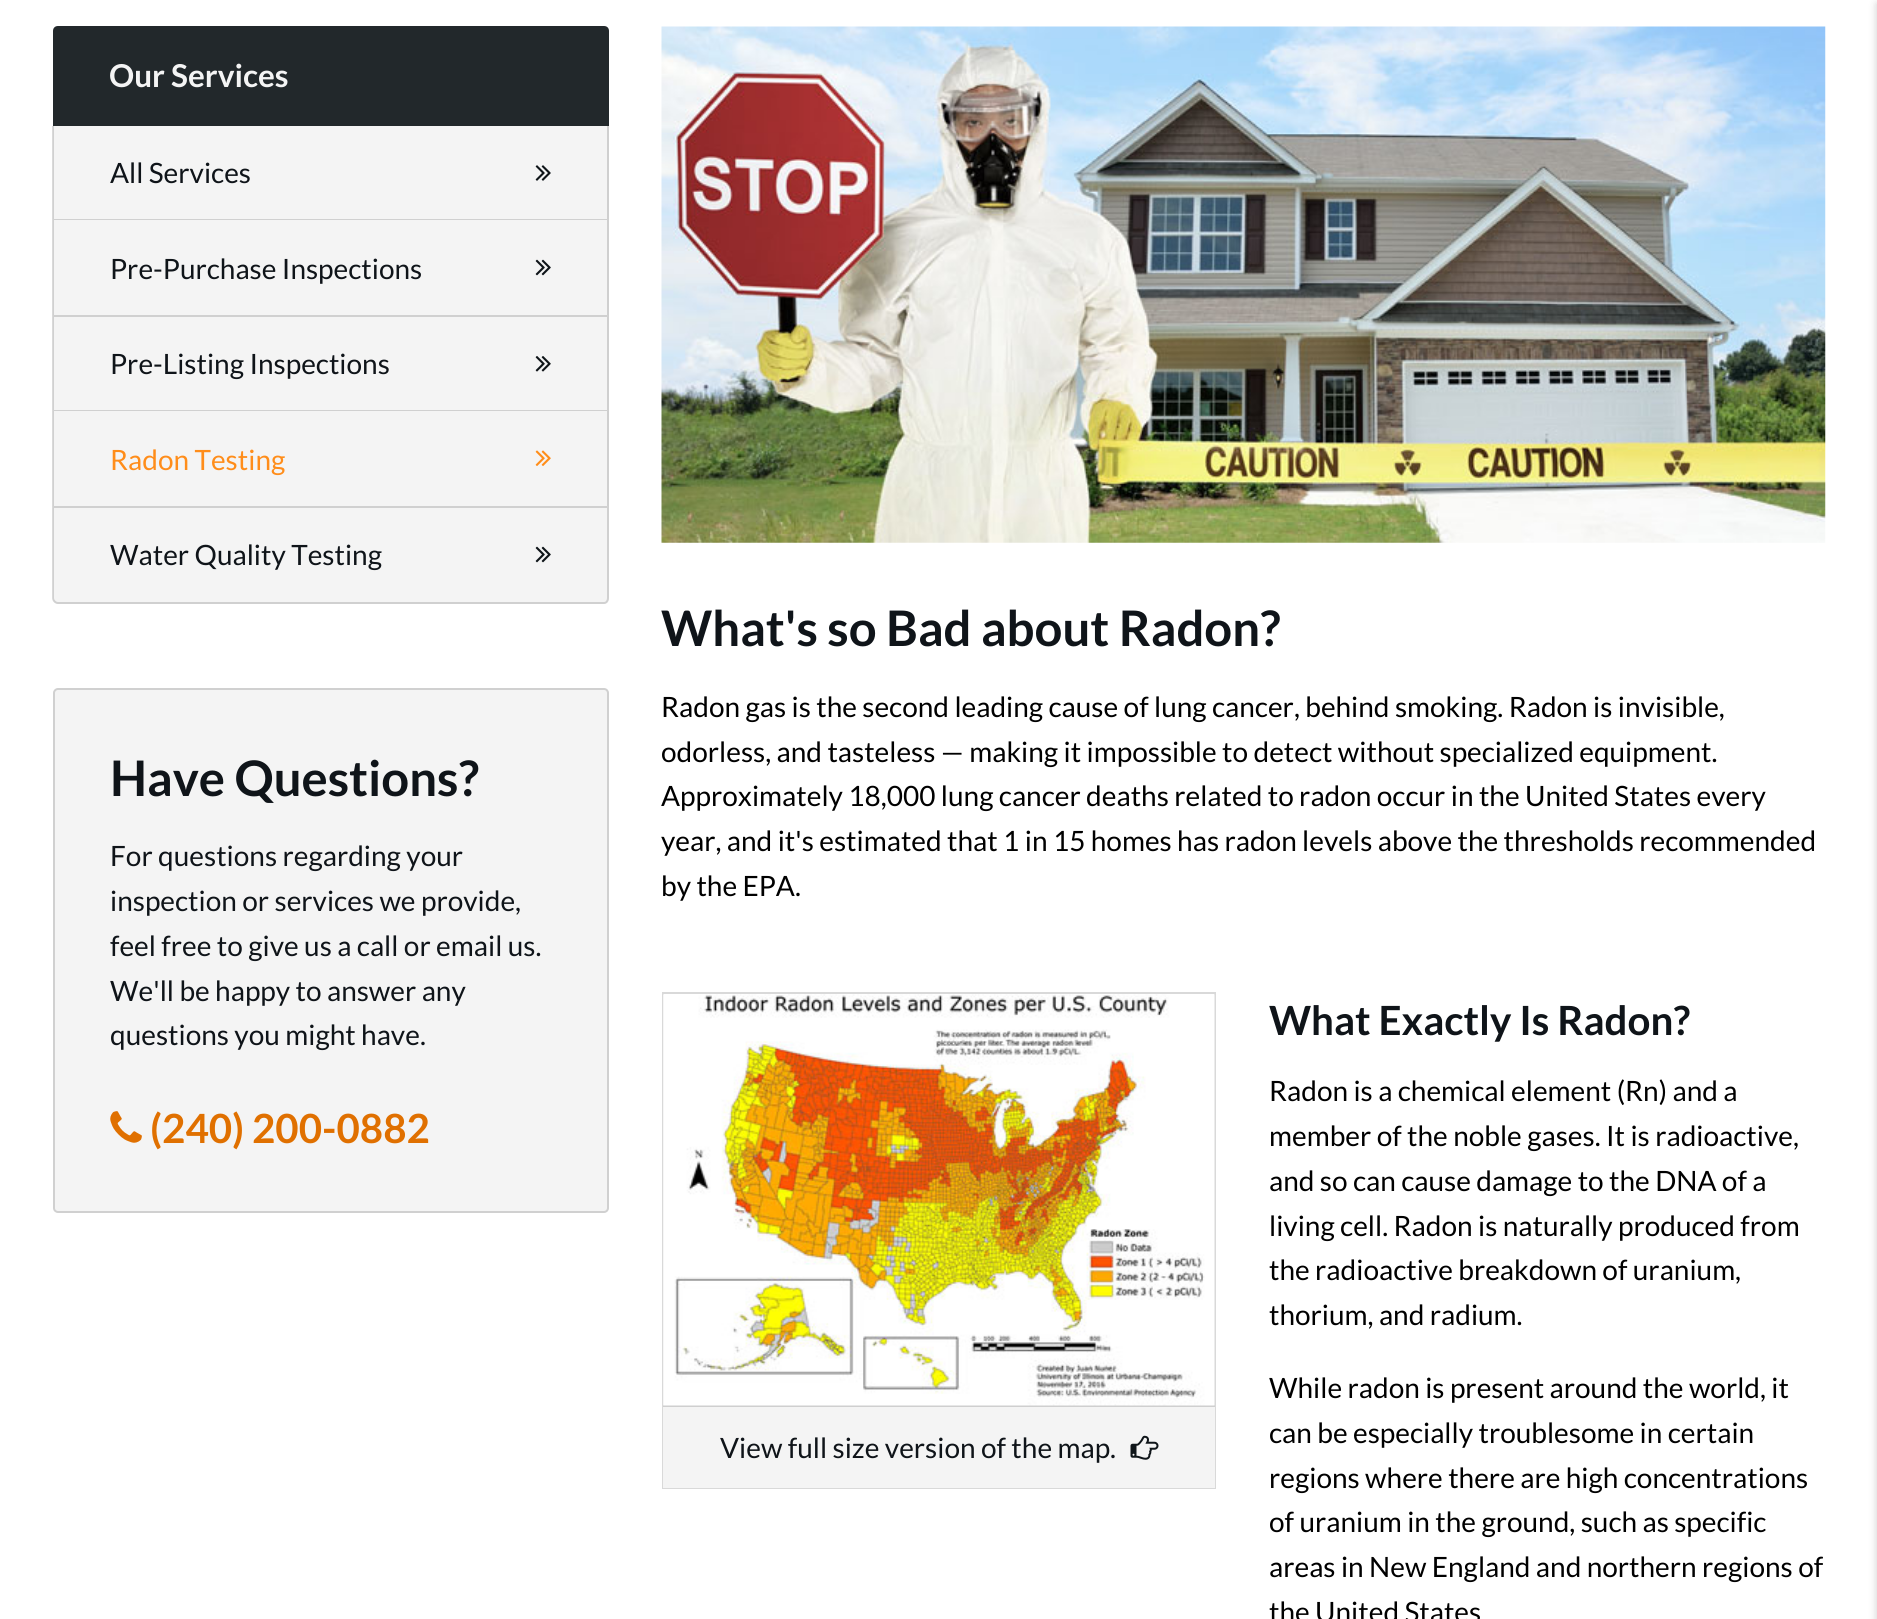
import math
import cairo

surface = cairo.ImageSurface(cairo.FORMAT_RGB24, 1877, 1619)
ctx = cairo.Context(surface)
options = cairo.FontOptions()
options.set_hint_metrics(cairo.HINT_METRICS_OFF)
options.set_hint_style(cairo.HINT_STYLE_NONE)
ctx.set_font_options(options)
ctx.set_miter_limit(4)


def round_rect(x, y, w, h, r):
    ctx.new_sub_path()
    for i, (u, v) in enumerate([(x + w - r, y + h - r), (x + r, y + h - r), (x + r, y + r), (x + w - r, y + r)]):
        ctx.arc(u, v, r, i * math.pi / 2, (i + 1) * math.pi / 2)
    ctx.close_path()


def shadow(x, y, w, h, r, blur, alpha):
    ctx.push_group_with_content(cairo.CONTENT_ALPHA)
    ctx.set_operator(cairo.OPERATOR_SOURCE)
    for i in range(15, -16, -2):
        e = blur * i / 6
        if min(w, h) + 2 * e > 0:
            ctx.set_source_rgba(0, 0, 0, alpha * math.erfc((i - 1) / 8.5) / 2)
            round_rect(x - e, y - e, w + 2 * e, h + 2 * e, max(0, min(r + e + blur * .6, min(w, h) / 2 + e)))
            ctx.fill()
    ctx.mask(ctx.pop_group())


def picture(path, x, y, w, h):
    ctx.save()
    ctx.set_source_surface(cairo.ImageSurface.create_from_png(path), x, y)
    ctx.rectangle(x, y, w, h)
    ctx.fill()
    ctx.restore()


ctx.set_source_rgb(1, 1, 1)
ctx.paint()
ctx.set_source_rgb(0.133, 0.157, 0.169)
ctx.new_path()
ctx.move_to(58, 26)
ctx.line_to(604, 26)
ctx.curve_to(607, 26, 609, 28, 609, 31)
ctx.line_to(609, 126)
ctx.line_to(53, 126)
ctx.line_to(53, 31)
ctx.curve_to(53, 28, 55, 26, 58, 26)
ctx.close_path()
ctx.fill()
ctx.select_font_face("Lato", cairo.FONT_SLANT_NORMAL, cairo.FONT_WEIGHT_BOLD)
ctx.set_font_size(31.5)
ctx.set_source_rgb(0.957, 0.957, 0.957)
ctx.move_to(109, 87)
ctx.show_text("Our Services")
ctx.rectangle(53, 126, 556, 382)
ctx.fill()
ctx.set_source_rgb(0.812, 0.812, 0.812)
ctx.new_path()
ctx.move_to(609, 126)
ctx.line_to(609, 220)
ctx.line_to(607, 219)
ctx.line_to(607, 126)
ctx.close_path()
ctx.fill()
ctx.set_source_rgba(0, 0, 0, 0.15)
ctx.new_path()
ctx.move_to(609, 220)
ctx.line_to(52, 220)
ctx.line_to(54, 219)
ctx.line_to(607, 219)
ctx.close_path()
ctx.fill()
ctx.new_path()
ctx.move_to(52, 220)
ctx.line_to(52, 126)
ctx.line_to(54, 126)
ctx.line_to(54, 219)
ctx.close_path()
ctx.fill()
ctx.select_font_face("Lato")
ctx.set_font_size(28)
ctx.set_source_rgb(0.059, 0.082, 0.098)
ctx.move_to(110, 183)
ctx.show_text("All Services")
picture("img1.png", 535, 165, 16, 16)
ctx.set_source_rgb(0.812, 0.812, 0.812)
ctx.new_path()
ctx.move_to(609, 220)
ctx.line_to(609, 317)
ctx.line_to(607, 315)
ctx.line_to(607, 220)
ctx.close_path()
ctx.fill()
ctx.set_source_rgba(0, 0, 0, 0.15)
ctx.new_path()
ctx.move_to(609, 317)
ctx.line_to(52, 317)
ctx.line_to(54, 315)
ctx.line_to(607, 315)
ctx.close_path()
ctx.fill()
ctx.new_path()
ctx.move_to(52, 317)
ctx.line_to(52, 220)
ctx.line_to(54, 220)
ctx.line_to(54, 315)
ctx.close_path()
ctx.fill()
ctx.set_source_rgb(0.059, 0.082, 0.098)
ctx.move_to(110, 279)
ctx.show_text("Pre-Purchase Inspections")
picture("img2.png", 535, 259, 16, 17)
ctx.set_source_rgb(0.812, 0.812, 0.812)
ctx.new_path()
ctx.move_to(609, 317)
ctx.line_to(609, 411)
ctx.line_to(607, 410)
ctx.line_to(607, 317)
ctx.close_path()
ctx.fill()
ctx.set_source_rgba(0, 0, 0, 0.15)
ctx.new_path()
ctx.move_to(609, 411)
ctx.line_to(52, 411)
ctx.line_to(54, 410)
ctx.line_to(607, 410)
ctx.close_path()
ctx.fill()
ctx.new_path()
ctx.move_to(52, 411)
ctx.line_to(52, 317)
ctx.line_to(54, 317)
ctx.line_to(54, 410)
ctx.close_path()
ctx.fill()
ctx.set_source_rgb(0.059, 0.082, 0.098)
ctx.move_to(110, 374)
ctx.show_text("Pre-Listing Inspections")
picture("img3.png", 535, 356, 16, 16)
ctx.set_source_rgb(0.812, 0.812, 0.812)
ctx.new_path()
ctx.move_to(609, 411)
ctx.line_to(609, 508)
ctx.line_to(607, 506)
ctx.line_to(607, 411)
ctx.close_path()
ctx.fill()
ctx.set_source_rgba(0, 0, 0, 0.15)
ctx.new_path()
ctx.move_to(609, 508)
ctx.line_to(52, 508)
ctx.line_to(54, 506)
ctx.line_to(607, 506)
ctx.close_path()
ctx.fill()
ctx.new_path()
ctx.move_to(52, 508)
ctx.line_to(52, 411)
ctx.line_to(54, 411)
ctx.line_to(54, 506)
ctx.close_path()
ctx.fill()
ctx.set_source_rgb(1, 0.553, 0.102)
ctx.move_to(110, 470)
ctx.show_text("Radon Testing")
picture("img4.png", 535, 450, 16, 16)
ctx.set_source_rgb(0.957, 0.957, 0.957)
ctx.new_path()
ctx.move_to(53, 508)
ctx.line_to(609, 508)
ctx.line_to(609, 599)
ctx.curve_to(609, 602, 607, 604, 604, 604)
ctx.line_to(58, 604)
ctx.curve_to(55, 604, 53, 602, 53, 599)
ctx.close_path()
ctx.fill()
ctx.set_source_rgba(0, 0, 0, 0.15)
ctx.set_fill_rule(cairo.FILL_RULE_EVEN_ODD)
ctx.new_path()
ctx.move_to(52, 508)
ctx.line_to(609, 508)
ctx.line_to(609, 598)
ctx.curve_to(609, 601, 607, 604, 604, 604)
ctx.line_to(58, 604)
ctx.curve_to(55, 604, 52, 601, 52, 598)
ctx.close_path()
ctx.move_to(54, 508)
ctx.line_to(607, 508)
ctx.line_to(607, 598)
ctx.curve_to(607, 600, 606, 602, 604, 602)
ctx.line_to(58, 602)
ctx.curve_to(56, 602, 54, 600, 54, 598)
ctx.close_path()
ctx.fill()
ctx.set_source_rgb(0.059, 0.082, 0.098)
ctx.move_to(110, 565)
ctx.show_text("Water Quality Testing")
picture("img2.png", 535, 546, 16, 17)
ctx.set_source_rgb(0.957, 0.957, 0.957)
round_rect(53, 688, 556, 525, 5)
ctx.fill()
round_rect(54, 689, 554, 523, 4)
ctx.set_source_rgba(0, 0, 0, 0.15)
ctx.stroke()
ctx.select_font_face("Lato", cairo.FONT_SLANT_NORMAL, cairo.FONT_WEIGHT_BOLD)
ctx.set_font_size(49)
ctx.set_source_rgb(0.059, 0.082, 0.098)
ctx.move_to(110, 796)
ctx.show_text("Have Questions?")
ctx.select_font_face("Lato")
ctx.set_font_size(28)
ctx.move_to(110, 866)
ctx.show_text("For questions regarding your")
ctx.move_to(110, 911)
ctx.show_text("inspection or services we provide,")
ctx.move_to(110, 956)
ctx.show_text("feel free to give us a call or email us.")
ctx.move_to(110, 1001)
ctx.show_text("We'll be happy to answer any")
ctx.move_to(110, 1045)
ctx.show_text("questions you might have.")
picture("img5.png", 110, 1111, 32, 32)
ctx.select_font_face("Lato", cairo.FONT_SLANT_NORMAL, cairo.FONT_WEIGHT_BOLD)
ctx.set_font_size(40.25)
ctx.set_source_rgb(0.878, 0.439, 0)
ctx.move_to(150, 1143)
ctx.show_text("(240) 200-0882")
picture("img6.png", 661, 26, 1165, 517)
ctx.set_font_size(49)
ctx.set_source_rgb(0.059, 0.082, 0.098)
ctx.move_to(661, 646)
ctx.show_text("What's so Bad about Radon?")
ctx.select_font_face("Lato")
ctx.set_font_size(28)
ctx.set_source_rgb(0, 0, 0)
ctx.move_to(661, 717)
ctx.show_text("Radon gas is the second leading cause of lung cancer, behind smoking. Radon is invisible,")
ctx.move_to(661, 762)
ctx.show_text("odorless, and tasteless — making it impossible to detect without specialized equipment.")
ctx.move_to(661, 806)
ctx.show_text("Approximately 18,000 lung cancer deaths related to radon occur in the United States every")
ctx.move_to(661, 851)
ctx.show_text("year, and it's estimated that 1 in 15 homes has radon levels above the thresholds recommended")
ctx.move_to(661, 896)
ctx.show_text("by the EPA.")
ctx.rectangle(663, 993, 552, 495)
ctx.set_source_rgb(0.851, 0.851, 0.851)
ctx.stroke()
ctx.set_source_rgb(0.812, 0.812, 0.812)
ctx.rectangle(663, 1405, 552, 2)
ctx.fill()
picture("img7.png", 663, 994, 552, 412)
ctx.set_source_rgb(0.957, 0.957, 0.957)
ctx.rectangle(663, 1407, 552, 81)
ctx.fill()
ctx.set_source_rgb(0.059, 0.082, 0.098)
ctx.move_to(720, 1458)
ctx.show_text("View full size version of the map.")
picture("img8.png", 1130, 1435, 29, 25)
ctx.select_font_face("Lato", cairo.FONT_SLANT_NORMAL, cairo.FONT_WEIGHT_BOLD)
ctx.set_font_size(40.25)
ctx.move_to(1269, 1035)
ctx.show_text("What Exactly Is Radon?")
ctx.select_font_face("Lato")
ctx.set_font_size(28)
ctx.set_source_rgb(0, 0, 0)
ctx.move_to(1269, 1101)
ctx.show_text("Radon is a chemical element (Rn) and a")
ctx.move_to(1269, 1146)
ctx.show_text("member of the noble gases. It is radioactive,")
ctx.move_to(1269, 1191)
ctx.show_text("and so can cause damage to the DNA of a")
ctx.move_to(1269, 1236)
ctx.show_text("living cell. Radon is naturally produced from")
ctx.move_to(1269, 1280)
ctx.show_text("the radioactive breakdown of uranium,")
ctx.move_to(1269, 1325)
ctx.show_text("thorium, and radium.")
ctx.move_to(1269, 1398)
ctx.show_text("While radon is present around the world, it")
ctx.move_to(1269, 1443)
ctx.show_text("can be especially troublesome in certain")
ctx.move_to(1269, 1488)
ctx.show_text("regions where there are high concentrations")
ctx.move_to(1269, 1532)
ctx.show_text("of uranium in the ground, such as specific")
ctx.move_to(1269, 1577)
ctx.show_text("areas in New England and northern regions of")
ctx.move_to(1269, 1622)
ctx.show_text("the United States")
ctx.set_source_rgb(0, 0, 0)
shadow(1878, 4, 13, 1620, 0, 4.5, 0.25)
surface.write_to_png("page.png")
